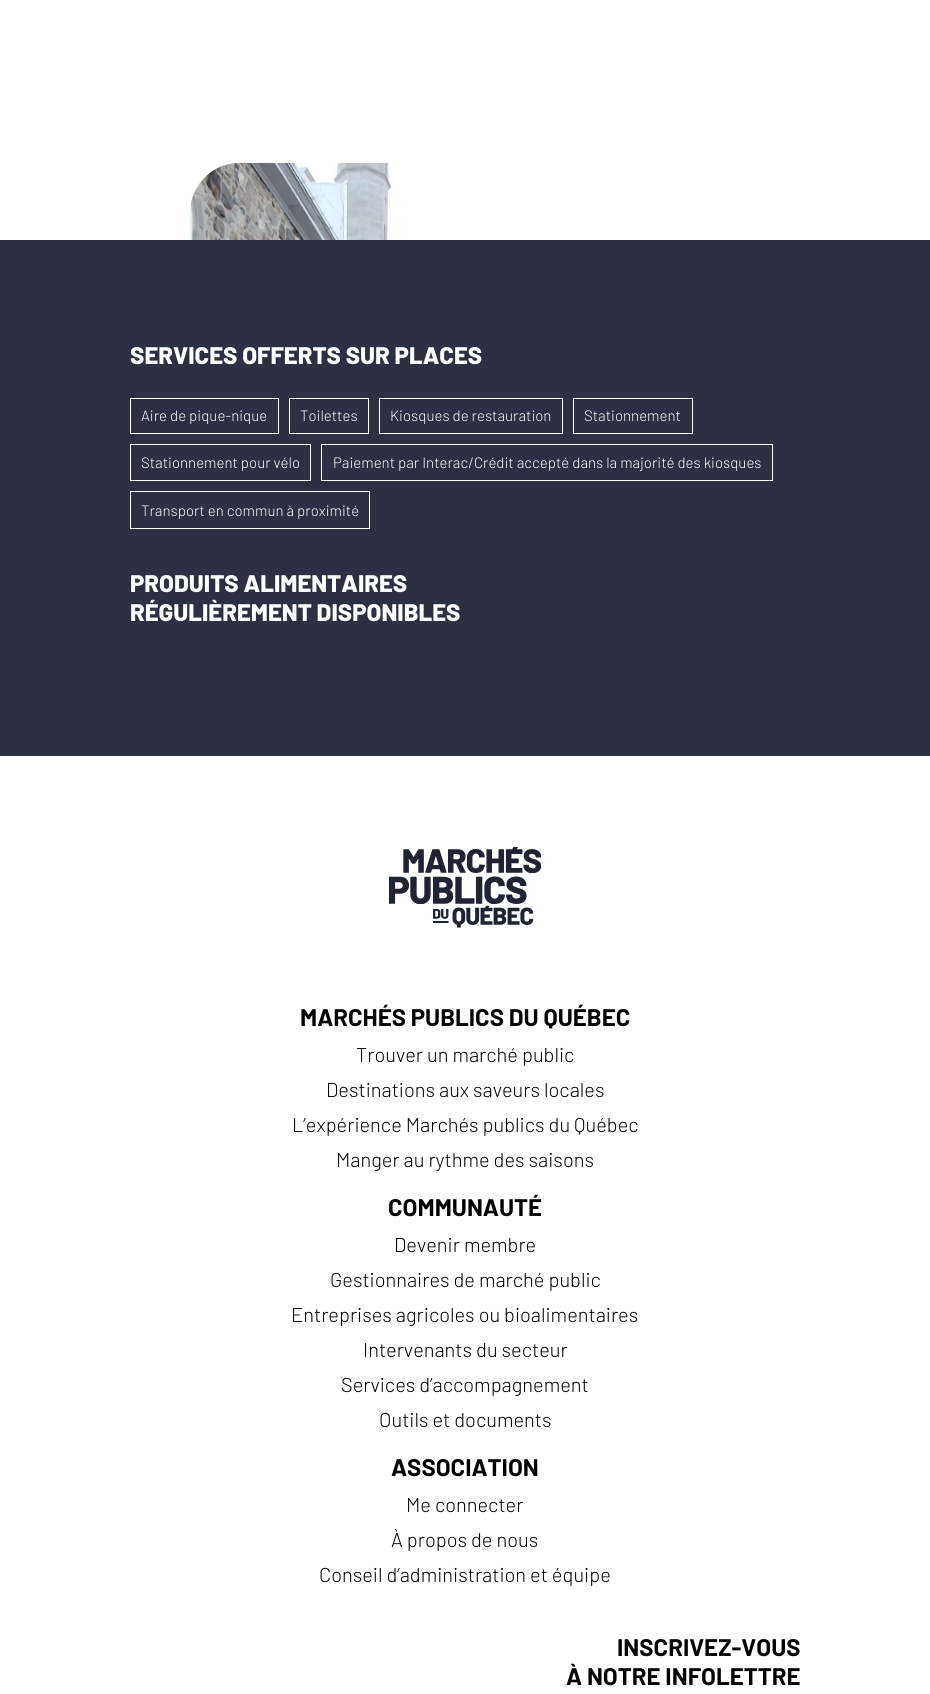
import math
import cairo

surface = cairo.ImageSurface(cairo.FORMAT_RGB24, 930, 1694)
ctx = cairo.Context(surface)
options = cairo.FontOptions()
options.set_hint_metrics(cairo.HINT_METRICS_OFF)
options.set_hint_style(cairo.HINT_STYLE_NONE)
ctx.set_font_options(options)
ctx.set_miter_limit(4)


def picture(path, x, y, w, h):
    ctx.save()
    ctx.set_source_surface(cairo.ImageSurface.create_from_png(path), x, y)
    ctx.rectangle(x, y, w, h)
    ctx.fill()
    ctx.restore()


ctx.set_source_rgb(1, 1, 1)
ctx.paint()
picture("img1.png", 190, 162, 550, 78)
ctx.set_source_rgb(0.176, 0.184, 0.263)
ctx.rectangle(0, 240, 930, 516)
ctx.fill()
ctx.select_font_face("Barlow ExtraBold")
ctx.set_font_size(24)
ctx.set_source_rgb(1, 1, 1)
ctx.move_to(130, 364)
ctx.show_text("SERVICES OFFERTS SUR PLACES")
ctx.rectangle(130.5, 398.5, 148, 35)
ctx.set_line_width(1)
ctx.stroke()
ctx.select_font_face("Barlow Light")
ctx.set_font_size(15)
ctx.move_to(141, 421)
ctx.show_text("Aire de pique-nique")
ctx.rectangle(289.5, 398.5, 79, 35)
ctx.stroke()
ctx.move_to(300, 421)
ctx.show_text("Toilettes")
ctx.rectangle(379.5, 398.5, 183, 35)
ctx.stroke()
ctx.move_to(390, 421)
ctx.show_text("Kiosques de restauration")
ctx.rectangle(573.5, 398.5, 119, 35)
ctx.stroke()
ctx.move_to(584, 421)
ctx.show_text("Stationnement")
ctx.rectangle(130.5, 444.5, 180, 36)
ctx.stroke()
ctx.move_to(141, 468)
ctx.show_text("Stationnement pour vélo")
ctx.rectangle(321.5, 444.5, 451, 36)
ctx.stroke()
ctx.move_to(333, 468)
ctx.show_text("Paiement par Interac/Crédit accepté dans la majorité des kiosques")
ctx.rectangle(130.5, 491.5, 239, 37)
ctx.stroke()
ctx.move_to(141, 516)
ctx.show_text("Transport en commun à proximité")
ctx.select_font_face("Barlow ExtraBold")
ctx.set_font_size(24)
ctx.move_to(130, 592)
ctx.show_text("PRODUITS ALIMENTAIRES")
ctx.move_to(130, 621)
ctx.show_text("RÉGULIÈREMENT DISPONIBLES")
picture("img2.png", 389, 847, 152, 81)
ctx.select_font_face("Barlow", cairo.FONT_SLANT_NORMAL, cairo.FONT_WEIGHT_BOLD)
ctx.set_source_rgb(0, 0, 0)
ctx.move_to(300, 1026)
ctx.show_text("MARCHÉS PUBLICS DU QUÉBEC")
ctx.select_font_face("Barlow Light")
ctx.set_font_size(20)
ctx.move_to(356, 1062)
ctx.show_text("Trouver un marché public")
ctx.move_to(326, 1097)
ctx.show_text("Destinations aux saveurs locales")
ctx.move_to(292, 1132)
ctx.show_text("L’expérience Marchés publics du Québec")
ctx.move_to(336, 1167)
ctx.show_text("Manger au rythme des saisons")
ctx.select_font_face("Barlow", cairo.FONT_SLANT_NORMAL, cairo.FONT_WEIGHT_BOLD)
ctx.set_font_size(24)
ctx.move_to(388, 1216)
ctx.show_text("COMMUNAUTÉ")
ctx.select_font_face("Barlow Light")
ctx.set_font_size(20)
ctx.move_to(394, 1252)
ctx.show_text("Devenir membre")
ctx.move_to(330, 1287)
ctx.show_text("Gestionnaires de marché public")
ctx.move_to(291, 1322)
ctx.show_text("Entreprises agricoles ou bioalimentaires")
ctx.move_to(363, 1357)
ctx.show_text("Intervenants du secteur")
ctx.move_to(341, 1392)
ctx.show_text("Services d’accompagnement")
ctx.move_to(379, 1427)
ctx.show_text("Outils et documents")
ctx.select_font_face("Barlow", cairo.FONT_SLANT_NORMAL, cairo.FONT_WEIGHT_BOLD)
ctx.set_font_size(24)
ctx.move_to(391, 1476)
ctx.show_text("ASSOCIATION")
ctx.select_font_face("Barlow Light")
ctx.set_font_size(20)
ctx.move_to(406, 1512)
ctx.show_text("Me connecter")
ctx.move_to(391, 1547)
ctx.show_text("À propos de nous")
ctx.move_to(319, 1582)
ctx.show_text("Conseil d’administration et équipe")
ctx.select_font_face("Barlow", cairo.FONT_SLANT_NORMAL, cairo.FONT_WEIGHT_BOLD)
ctx.set_font_size(24)
ctx.move_to(617, 1656)
ctx.show_text("INSCRIVEZ-VOUS")
ctx.move_to(566, 1685)
ctx.show_text("À NOTRE INFOLETTRE")
surface.write_to_png("page.png")
